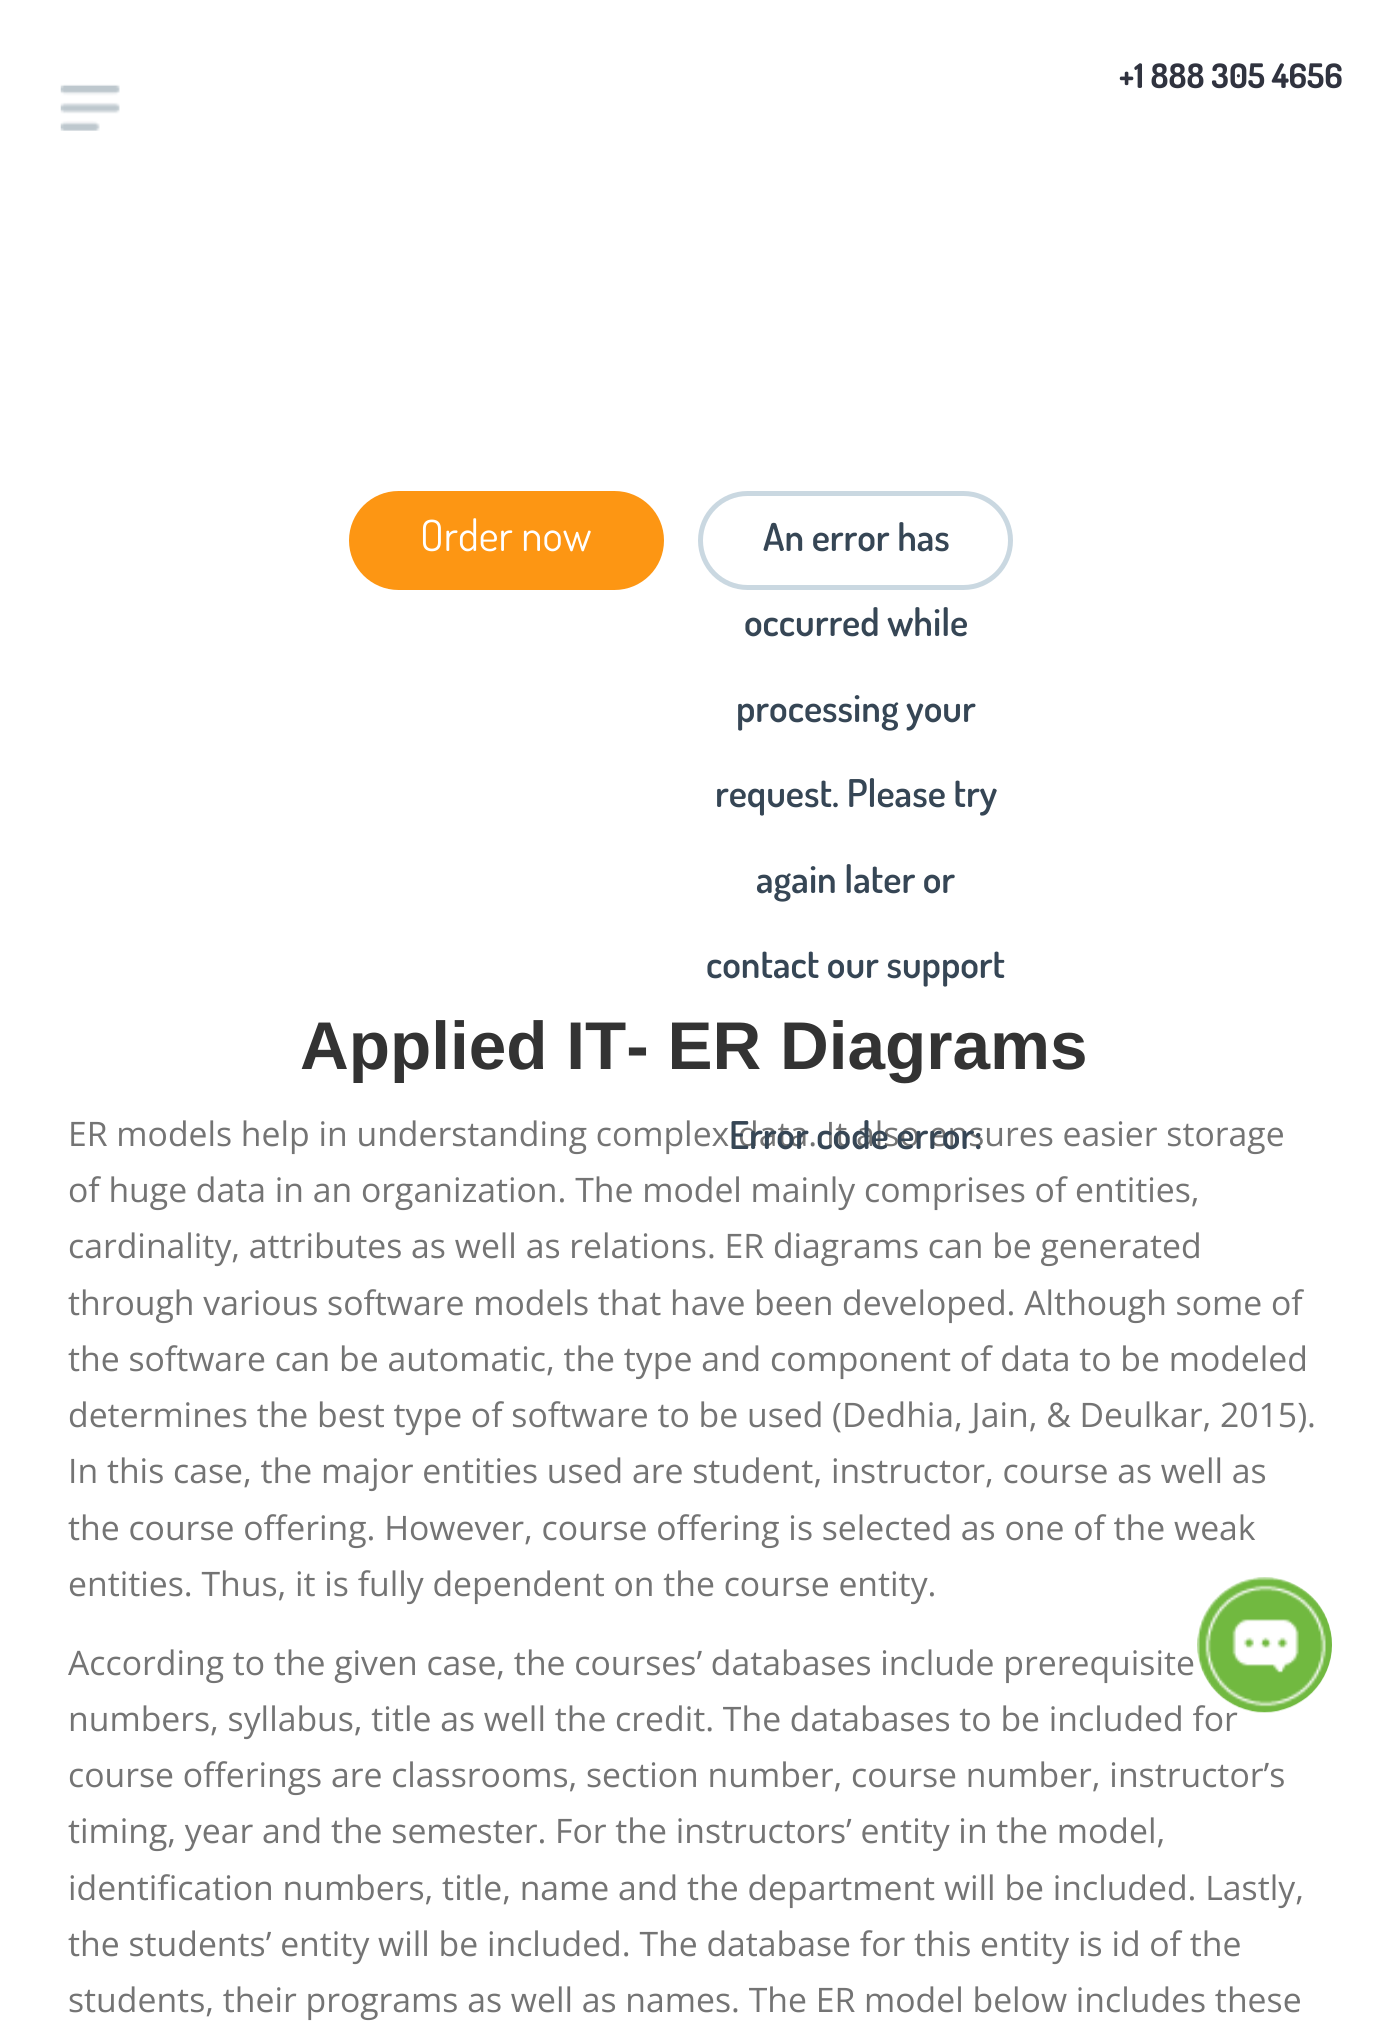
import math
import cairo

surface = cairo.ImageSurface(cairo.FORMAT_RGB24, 1387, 2026)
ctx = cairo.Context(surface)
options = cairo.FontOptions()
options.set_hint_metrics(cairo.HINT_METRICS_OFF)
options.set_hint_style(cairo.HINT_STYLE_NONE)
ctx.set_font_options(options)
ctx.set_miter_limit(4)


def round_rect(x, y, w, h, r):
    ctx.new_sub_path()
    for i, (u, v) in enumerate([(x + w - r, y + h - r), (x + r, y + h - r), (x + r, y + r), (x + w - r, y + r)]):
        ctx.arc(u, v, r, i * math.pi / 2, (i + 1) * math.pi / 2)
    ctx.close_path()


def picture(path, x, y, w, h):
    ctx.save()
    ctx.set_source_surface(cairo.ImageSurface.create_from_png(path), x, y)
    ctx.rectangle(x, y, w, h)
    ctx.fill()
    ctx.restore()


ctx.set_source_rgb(1, 1, 1)
ctx.paint()
ctx.select_font_face("Dosis", cairo.FONT_SLANT_NORMAL, cairo.FONT_WEIGHT_BOLD)
ctx.set_font_size(33.75)
ctx.set_source_rgb(0.188, 0.2, 0.247)
ctx.move_to(1119, 88)
ctx.show_text("+1 888 305 4656")
picture("img1.png", 60, 84, 60, 47)
ctx.set_source_rgb(0.992, 0.588, 0.075)
round_rect(349, 491, 315, 99, 49.5)
ctx.fill()
ctx.select_font_face("Dosis")
ctx.set_font_size(43)
ctx.set_source_rgb(1, 1, 1)
ctx.move_to(420, 551)
ctx.show_text("Order now")
round_rect(700.5, 493.5, 310, 94, 47)
ctx.set_source_rgb(0.792, 0.847, 0.882)
ctx.set_line_width(5)
ctx.stroke()
ctx.select_font_face("Dosis SemiBold")
ctx.set_font_size(38.25)
ctx.set_source_rgb(0.212, 0.275, 0.333)
ctx.move_to(763, 551)
ctx.show_text("An error has")
ctx.move_to(744, 636)
ctx.show_text("occurred while")
ctx.move_to(736, 722)
ctx.show_text("processing your")
ctx.move_to(715, 807)
ctx.show_text("request. Please try")
ctx.move_to(756, 893)
ctx.show_text("again later or")
ctx.move_to(706, 978)
ctx.show_text("contact our support")
ctx.select_font_face("Open Sans")
ctx.set_font_size(33.75)
ctx.set_source_rgb(0.455, 0.455, 0.455)
ctx.move_to(68, 1146)
ctx.show_text("ER models help in understanding complex data. It also ensures easier storage")
ctx.select_font_face("Dosis SemiBold")
ctx.set_font_size(38.25)
ctx.set_source_rgb(0.212, 0.275, 0.333)
ctx.move_to(729, 1149)
ctx.show_text("Error code error:")
ctx.select_font_face("Liberation Sans", cairo.FONT_SLANT_NORMAL, cairo.FONT_WEIGHT_BOLD)
ctx.set_font_size(67.5)
ctx.set_source_rgb(0.2, 0.2, 0.2)
ctx.move_to(300, 1069)
ctx.show_text("Applied IT- ER Diagrams")
ctx.select_font_face("Open Sans")
ctx.set_font_size(33.75)
ctx.set_source_rgb(0.455, 0.455, 0.455)
ctx.move_to(68, 1202)
ctx.show_text("of huge data in an organization. The model mainly comprises of entities,")
ctx.move_to(68, 1258)
ctx.show_text("cardinality, attributes as well as relations. ER diagrams can be generated")
ctx.move_to(68, 1315)
ctx.show_text("through various software models that have been developed. Although some of")
ctx.move_to(68, 1371)
ctx.show_text("the software can be automatic, the type and component of data to be modeled")
ctx.move_to(68, 1427)
ctx.show_text("determines the best type of software to be used (Dedhia, Jain, & Deulkar, 2015).")
ctx.move_to(68, 1483)
ctx.show_text("In this case, the major entities used are student, instructor, course as well as")
ctx.move_to(68, 1540)
ctx.show_text("the course offering. However, course offering is selected as one of the weak")
ctx.move_to(68, 1596)
ctx.show_text("entities. Thus, it is fully dependent on the course entity.")
ctx.move_to(68, 1675)
ctx.show_text("According to the given case, the courses’ databases include prerequisite")
ctx.move_to(68, 1731)
ctx.show_text("numbers, syllabus, title as well the credit. The databases to be included for")
ctx.move_to(68, 1787)
ctx.show_text("course offerings are classrooms, section number, course number, instructor’s")
ctx.move_to(68, 1843)
ctx.show_text("timing, year and the semester. For the instructors’ entity in the model,")
ctx.move_to(68, 1900)
ctx.show_text("identification numbers, title, name and the department will be included. Lastly,")
ctx.move_to(68, 1956)
ctx.show_text("the students’ entity will be included. The database for this entity is id of the")
ctx.move_to(68, 2012)
ctx.show_text("students, their programs as well as names. The ER model below includes these")
picture("img2.png", 1197, 1577, 135, 136)
surface.write_to_png("page.png")
